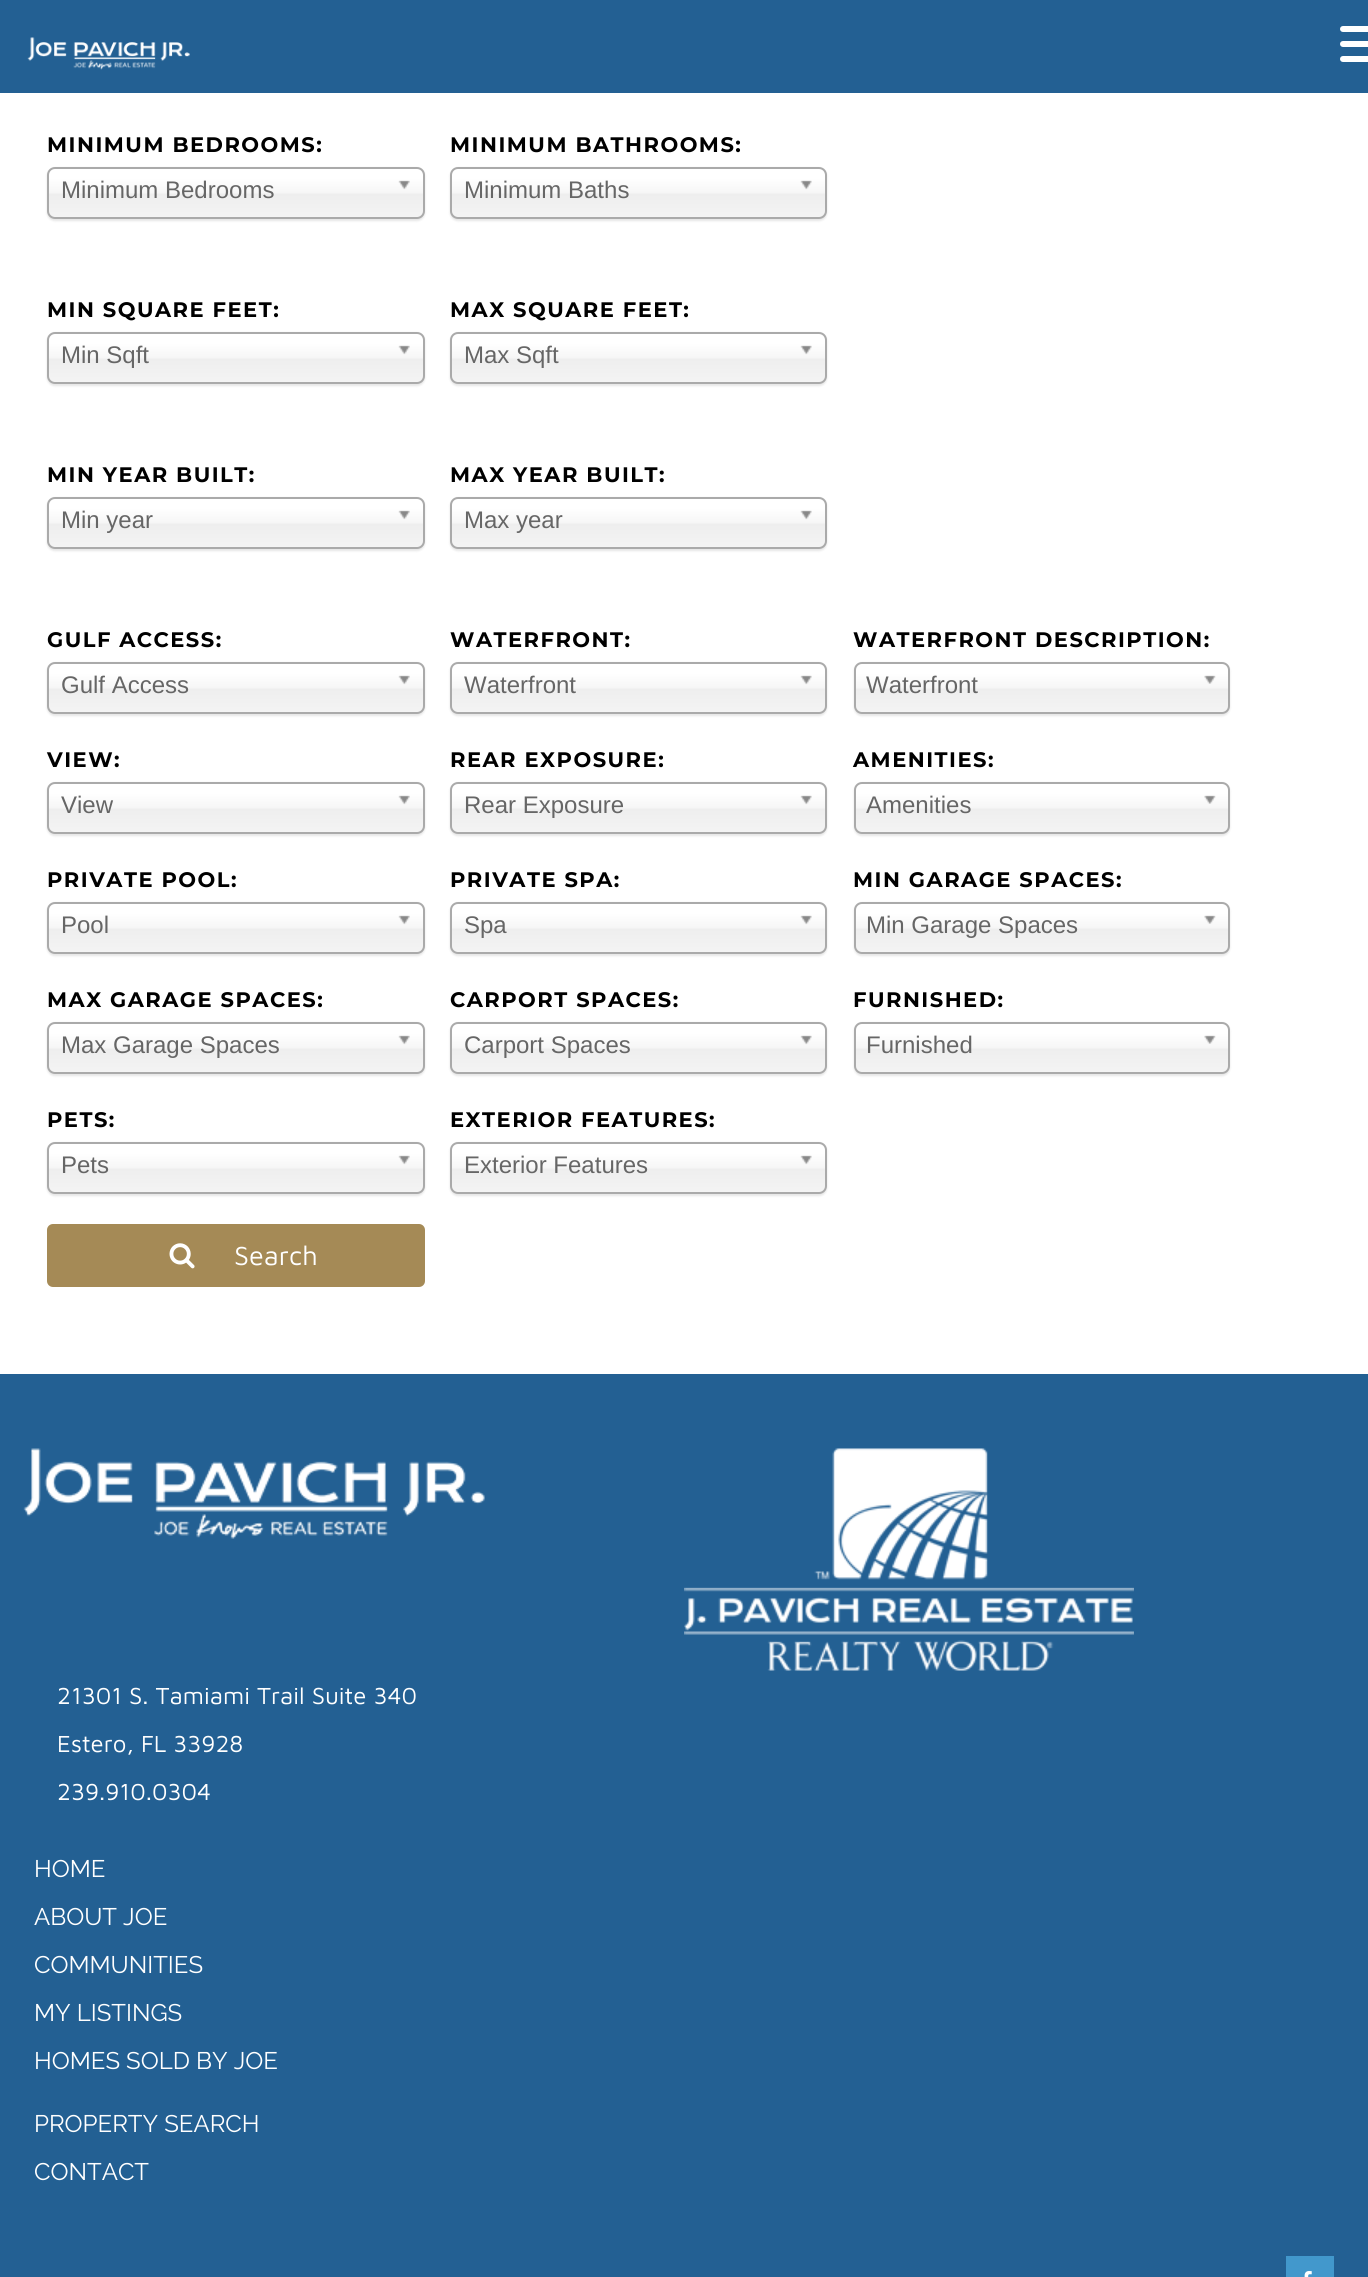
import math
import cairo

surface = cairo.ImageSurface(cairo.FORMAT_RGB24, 1368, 2277)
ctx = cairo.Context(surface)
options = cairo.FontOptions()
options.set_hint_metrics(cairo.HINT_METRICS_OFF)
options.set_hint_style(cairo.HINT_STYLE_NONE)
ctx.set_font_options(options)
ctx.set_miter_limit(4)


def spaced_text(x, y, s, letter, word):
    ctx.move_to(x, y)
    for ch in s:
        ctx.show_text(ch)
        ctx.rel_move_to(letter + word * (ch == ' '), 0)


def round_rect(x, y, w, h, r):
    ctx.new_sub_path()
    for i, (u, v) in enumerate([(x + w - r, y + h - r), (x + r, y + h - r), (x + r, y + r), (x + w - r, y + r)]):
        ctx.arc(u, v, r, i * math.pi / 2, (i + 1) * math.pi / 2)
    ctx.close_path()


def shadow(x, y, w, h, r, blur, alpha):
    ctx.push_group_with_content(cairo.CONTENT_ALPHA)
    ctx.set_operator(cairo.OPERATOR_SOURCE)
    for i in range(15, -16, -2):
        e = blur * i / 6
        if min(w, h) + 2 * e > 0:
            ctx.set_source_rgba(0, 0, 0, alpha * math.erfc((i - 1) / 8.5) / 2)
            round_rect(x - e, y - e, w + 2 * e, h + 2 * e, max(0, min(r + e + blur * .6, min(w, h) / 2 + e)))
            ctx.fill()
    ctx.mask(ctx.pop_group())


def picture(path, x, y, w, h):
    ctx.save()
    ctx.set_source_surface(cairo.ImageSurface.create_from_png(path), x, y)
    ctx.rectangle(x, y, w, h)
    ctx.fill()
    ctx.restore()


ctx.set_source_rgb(1, 1, 1)
ctx.paint()
ctx.set_source_rgb(0.137, 0.376, 0.576)
ctx.rectangle(0, 0, 1368, 93)
ctx.fill()
picture("img1.png", 27, 37, 163, 33)
ctx.set_source_rgb(1, 1, 1)
round_rect(1340, 26, 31, 6, 3)
ctx.fill()
round_rect(1340, 41, 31, 6, 3)
ctx.fill()
round_rect(1340, 56, 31, 6, 3)
ctx.fill()
ctx.select_font_face("Montserrat", cairo.FONT_SLANT_NORMAL, cairo.FONT_WEIGHT_BOLD)
ctx.set_font_size(21)
ctx.set_source_rgb(0, 0, 0)
spaced_text(47, 152, "MINIMUM BEDROOMS:", 1.5, 0)
ctx.set_source_rgb(0, 0, 0)
shadow(47, 168, 378, 53, 8, 1, 0.1)
gradient = cairo.LinearGradient(236, 168, 236, 218)
gradient.add_color_stop_rgba(0.2, 1, 1, 1, 1)
gradient.add_color_stop_rgba(0.5, 0.965, 0.965, 0.965, 1)
gradient.add_color_stop_rgba(0.52, 0.933, 0.933, 0.933, 1)
gradient.add_color_stop_rgba(1, 0.957, 0.957, 0.957, 1)
ctx.set_source(gradient)
round_rect(48, 168, 375, 50, 6)
ctx.fill()
round_rect(48, 168, 376, 50, 7)
ctx.set_source_rgb(0.667, 0.667, 0.667)
ctx.stroke()
ctx.select_font_face("Liberation Sans")
ctx.set_font_size(24)
ctx.set_source_rgb(0.4, 0.4, 0.4)
ctx.move_to(61, 198)
ctx.show_text("Minimum Bedrooms")
picture("img2.png", 398, 180, 12, 10)
ctx.select_font_face("Montserrat", cairo.FONT_SLANT_NORMAL, cairo.FONT_WEIGHT_BOLD)
ctx.set_font_size(21)
ctx.set_source_rgb(0, 0, 0)
spaced_text(450, 152, "MINIMUM BATHROOMS:", 1.5, 0)
ctx.set_source_rgb(0, 0, 0)
shadow(450, 168, 377, 53, 8, 1, 0.1)
gradient = cairo.LinearGradient(638, 168, 638, 218)
gradient.add_color_stop_rgba(0.2, 1, 1, 1, 1)
gradient.add_color_stop_rgba(0.5, 0.965, 0.965, 0.965, 1)
gradient.add_color_stop_rgba(0.52, 0.933, 0.933, 0.933, 1)
gradient.add_color_stop_rgba(1, 0.957, 0.957, 0.957, 1)
ctx.set_source(gradient)
round_rect(452, 168, 373, 50, 6)
ctx.fill()
round_rect(451, 168, 375, 50, 7)
ctx.set_source_rgb(0.667, 0.667, 0.667)
ctx.stroke()
ctx.select_font_face("Liberation Sans")
ctx.set_font_size(24)
ctx.set_source_rgb(0.4, 0.4, 0.4)
ctx.move_to(464, 198)
ctx.show_text("Minimum Baths")
picture("img3.png", 800, 180, 12, 10)
ctx.select_font_face("Montserrat", cairo.FONT_SLANT_NORMAL, cairo.FONT_WEIGHT_BOLD)
ctx.set_font_size(21)
ctx.set_source_rgb(0, 0, 0)
spaced_text(47, 317, "MIN SQUARE FEET:", 1.5, 0)
ctx.set_source_rgb(0, 0, 0)
shadow(47, 333, 378, 53, 8, 1, 0.1)
gradient = cairo.LinearGradient(236, 333, 236, 383)
gradient.add_color_stop_rgba(0.2, 1, 1, 1, 1)
gradient.add_color_stop_rgba(0.5, 0.965, 0.965, 0.965, 1)
gradient.add_color_stop_rgba(0.52, 0.933, 0.933, 0.933, 1)
gradient.add_color_stop_rgba(1, 0.957, 0.957, 0.957, 1)
ctx.set_source(gradient)
round_rect(48, 333, 375, 50, 6)
ctx.fill()
round_rect(48, 333, 376, 50, 7)
ctx.set_source_rgb(0.667, 0.667, 0.667)
ctx.stroke()
ctx.select_font_face("Liberation Sans")
ctx.set_font_size(24)
ctx.set_source_rgb(0.4, 0.4, 0.4)
ctx.move_to(61, 363)
ctx.show_text("Min Sqft")
picture("img2.png", 398, 345, 12, 10)
ctx.select_font_face("Montserrat", cairo.FONT_SLANT_NORMAL, cairo.FONT_WEIGHT_BOLD)
ctx.set_font_size(21)
ctx.set_source_rgb(0, 0, 0)
spaced_text(450, 317, "MAX SQUARE FEET:", 1.5, 0)
ctx.set_source_rgb(0, 0, 0)
shadow(450, 333, 377, 53, 8, 1, 0.1)
gradient = cairo.LinearGradient(638, 333, 638, 383)
gradient.add_color_stop_rgba(0.2, 1, 1, 1, 1)
gradient.add_color_stop_rgba(0.5, 0.965, 0.965, 0.965, 1)
gradient.add_color_stop_rgba(0.52, 0.933, 0.933, 0.933, 1)
gradient.add_color_stop_rgba(1, 0.957, 0.957, 0.957, 1)
ctx.set_source(gradient)
round_rect(452, 333, 373, 50, 6)
ctx.fill()
round_rect(451, 333, 375, 50, 7)
ctx.set_source_rgb(0.667, 0.667, 0.667)
ctx.stroke()
ctx.select_font_face("Liberation Sans")
ctx.set_font_size(24)
ctx.set_source_rgb(0.4, 0.4, 0.4)
ctx.move_to(464, 363)
ctx.show_text("Max Sqft")
picture("img3.png", 800, 345, 12, 10)
ctx.select_font_face("Montserrat", cairo.FONT_SLANT_NORMAL, cairo.FONT_WEIGHT_BOLD)
ctx.set_font_size(21)
ctx.set_source_rgb(0, 0, 0)
spaced_text(47, 482, "MIN YEAR BUILT:", 1.5, 0)
ctx.set_source_rgb(0, 0, 0)
shadow(47, 498, 378, 53, 8, 1, 0.1)
gradient = cairo.LinearGradient(236, 498, 236, 548)
gradient.add_color_stop_rgba(0.2, 1, 1, 1, 1)
gradient.add_color_stop_rgba(0.5, 0.965, 0.965, 0.965, 1)
gradient.add_color_stop_rgba(0.52, 0.933, 0.933, 0.933, 1)
gradient.add_color_stop_rgba(1, 0.957, 0.957, 0.957, 1)
ctx.set_source(gradient)
round_rect(48, 498, 375, 50, 6)
ctx.fill()
round_rect(48, 498, 376, 50, 7)
ctx.set_source_rgb(0.667, 0.667, 0.667)
ctx.stroke()
ctx.select_font_face("Liberation Sans")
ctx.set_font_size(24)
ctx.set_source_rgb(0.4, 0.4, 0.4)
ctx.move_to(61, 528)
ctx.show_text("Min year")
picture("img2.png", 398, 510, 12, 10)
ctx.select_font_face("Montserrat", cairo.FONT_SLANT_NORMAL, cairo.FONT_WEIGHT_BOLD)
ctx.set_font_size(21)
ctx.set_source_rgb(0, 0, 0)
spaced_text(450, 482, "MAX YEAR BUILT:", 1.5, 0)
ctx.set_source_rgb(0, 0, 0)
shadow(450, 498, 377, 53, 8, 1, 0.1)
gradient = cairo.LinearGradient(638, 498, 638, 548)
gradient.add_color_stop_rgba(0.2, 1, 1, 1, 1)
gradient.add_color_stop_rgba(0.5, 0.965, 0.965, 0.965, 1)
gradient.add_color_stop_rgba(0.52, 0.933, 0.933, 0.933, 1)
gradient.add_color_stop_rgba(1, 0.957, 0.957, 0.957, 1)
ctx.set_source(gradient)
round_rect(452, 498, 373, 50, 6)
ctx.fill()
round_rect(451, 498, 375, 50, 7)
ctx.set_source_rgb(0.667, 0.667, 0.667)
ctx.stroke()
ctx.select_font_face("Liberation Sans")
ctx.set_font_size(24)
ctx.set_source_rgb(0.4, 0.4, 0.4)
ctx.move_to(464, 528)
ctx.show_text("Max year")
picture("img3.png", 800, 510, 12, 10)
ctx.select_font_face("Montserrat", cairo.FONT_SLANT_NORMAL, cairo.FONT_WEIGHT_BOLD)
ctx.set_font_size(21)
ctx.set_source_rgb(0, 0, 0)
spaced_text(47, 647, "GULF ACCESS:", 1.5, 0)
ctx.set_source_rgb(0, 0, 0)
shadow(47, 663, 378, 53, 8, 1, 0.1)
gradient = cairo.LinearGradient(236, 663, 236, 713)
gradient.add_color_stop_rgba(0.2, 1, 1, 1, 1)
gradient.add_color_stop_rgba(0.5, 0.965, 0.965, 0.965, 1)
gradient.add_color_stop_rgba(0.52, 0.933, 0.933, 0.933, 1)
gradient.add_color_stop_rgba(1, 0.957, 0.957, 0.957, 1)
ctx.set_source(gradient)
round_rect(48, 663, 375, 50, 6)
ctx.fill()
round_rect(48, 663, 376, 50, 7)
ctx.set_source_rgb(0.667, 0.667, 0.667)
ctx.stroke()
ctx.select_font_face("Liberation Sans")
ctx.set_font_size(24)
ctx.set_source_rgb(0.4, 0.4, 0.4)
ctx.move_to(61, 693)
ctx.show_text("Gulf Access")
picture("img2.png", 398, 675, 12, 10)
ctx.select_font_face("Montserrat", cairo.FONT_SLANT_NORMAL, cairo.FONT_WEIGHT_BOLD)
ctx.set_font_size(21)
ctx.set_source_rgb(0, 0, 0)
spaced_text(450, 647, "WATERFRONT:", 1.5, 0)
ctx.set_source_rgb(0, 0, 0)
shadow(450, 663, 377, 53, 8, 1, 0.1)
gradient = cairo.LinearGradient(638, 663, 638, 713)
gradient.add_color_stop_rgba(0.2, 1, 1, 1, 1)
gradient.add_color_stop_rgba(0.5, 0.965, 0.965, 0.965, 1)
gradient.add_color_stop_rgba(0.52, 0.933, 0.933, 0.933, 1)
gradient.add_color_stop_rgba(1, 0.957, 0.957, 0.957, 1)
ctx.set_source(gradient)
round_rect(452, 663, 373, 50, 6)
ctx.fill()
round_rect(451, 663, 375, 50, 7)
ctx.set_source_rgb(0.667, 0.667, 0.667)
ctx.stroke()
ctx.select_font_face("Liberation Sans")
ctx.set_font_size(24)
ctx.set_source_rgb(0.4, 0.4, 0.4)
ctx.move_to(464, 693)
ctx.show_text("Waterfront")
picture("img3.png", 800, 675, 12, 10)
ctx.select_font_face("Montserrat", cairo.FONT_SLANT_NORMAL, cairo.FONT_WEIGHT_BOLD)
ctx.set_font_size(21)
ctx.set_source_rgb(0, 0, 0)
spaced_text(853, 647, "WATERFRONT DESCRIPTION:", 1.5, 0)
ctx.set_source_rgb(0, 0, 0)
shadow(854, 663, 376, 53, 8, 1, 0.1)
gradient = cairo.LinearGradient(1042, 663, 1042, 713)
gradient.add_color_stop_rgba(0.2, 1, 1, 1, 1)
gradient.add_color_stop_rgba(0.5, 0.965, 0.965, 0.965, 1)
gradient.add_color_stop_rgba(0.52, 0.933, 0.933, 0.933, 1)
gradient.add_color_stop_rgba(1, 0.957, 0.957, 0.957, 1)
ctx.set_source(gradient)
round_rect(855, 663, 374, 50, 6)
ctx.fill()
round_rect(855, 663, 374, 50, 7)
ctx.set_source_rgb(0.667, 0.667, 0.667)
ctx.stroke()
ctx.select_font_face("Liberation Sans")
ctx.set_font_size(24)
ctx.set_source_rgb(0.4, 0.4, 0.4)
ctx.move_to(866, 693)
ctx.show_text("Waterfront")
picture("img4.png", 1204, 675, 12, 9)
ctx.select_font_face("Montserrat", cairo.FONT_SLANT_NORMAL, cairo.FONT_WEIGHT_BOLD)
ctx.set_font_size(21)
ctx.set_source_rgb(0, 0, 0)
spaced_text(47, 767, "VIEW:", 1.5, 0)
ctx.set_source_rgb(0, 0, 0)
shadow(47, 783, 378, 53, 8, 1, 0.1)
gradient = cairo.LinearGradient(236, 783, 236, 833)
gradient.add_color_stop_rgba(0.2, 1, 1, 1, 1)
gradient.add_color_stop_rgba(0.5, 0.965, 0.965, 0.965, 1)
gradient.add_color_stop_rgba(0.52, 0.933, 0.933, 0.933, 1)
gradient.add_color_stop_rgba(1, 0.957, 0.957, 0.957, 1)
ctx.set_source(gradient)
round_rect(48, 783, 375, 50, 6)
ctx.fill()
round_rect(48, 783, 376, 50, 7)
ctx.set_source_rgb(0.667, 0.667, 0.667)
ctx.stroke()
ctx.select_font_face("Liberation Sans")
ctx.set_font_size(24)
ctx.set_source_rgb(0.4, 0.4, 0.4)
ctx.move_to(61, 813)
ctx.show_text("View")
picture("img2.png", 398, 795, 12, 10)
ctx.select_font_face("Montserrat", cairo.FONT_SLANT_NORMAL, cairo.FONT_WEIGHT_BOLD)
ctx.set_font_size(21)
ctx.set_source_rgb(0, 0, 0)
spaced_text(450, 767, "REAR EXPOSURE:", 1.5, 0)
ctx.set_source_rgb(0, 0, 0)
shadow(450, 783, 377, 53, 8, 1, 0.1)
gradient = cairo.LinearGradient(638, 783, 638, 833)
gradient.add_color_stop_rgba(0.2, 1, 1, 1, 1)
gradient.add_color_stop_rgba(0.5, 0.965, 0.965, 0.965, 1)
gradient.add_color_stop_rgba(0.52, 0.933, 0.933, 0.933, 1)
gradient.add_color_stop_rgba(1, 0.957, 0.957, 0.957, 1)
ctx.set_source(gradient)
round_rect(452, 783, 373, 50, 6)
ctx.fill()
round_rect(451, 783, 375, 50, 7)
ctx.set_source_rgb(0.667, 0.667, 0.667)
ctx.stroke()
ctx.select_font_face("Liberation Sans")
ctx.set_font_size(24)
ctx.set_source_rgb(0.4, 0.4, 0.4)
ctx.move_to(464, 813)
ctx.show_text("Rear Exposure")
picture("img3.png", 800, 795, 12, 10)
ctx.select_font_face("Montserrat", cairo.FONT_SLANT_NORMAL, cairo.FONT_WEIGHT_BOLD)
ctx.set_font_size(21)
ctx.set_source_rgb(0, 0, 0)
spaced_text(853, 767, "AMENITIES:", 1.5, 0)
ctx.set_source_rgb(0, 0, 0)
shadow(854, 783, 376, 53, 8, 1, 0.1)
gradient = cairo.LinearGradient(1042, 783, 1042, 833)
gradient.add_color_stop_rgba(0.2, 1, 1, 1, 1)
gradient.add_color_stop_rgba(0.5, 0.965, 0.965, 0.965, 1)
gradient.add_color_stop_rgba(0.52, 0.933, 0.933, 0.933, 1)
gradient.add_color_stop_rgba(1, 0.957, 0.957, 0.957, 1)
ctx.set_source(gradient)
round_rect(855, 783, 374, 50, 6)
ctx.fill()
round_rect(855, 783, 374, 50, 7)
ctx.set_source_rgb(0.667, 0.667, 0.667)
ctx.stroke()
ctx.select_font_face("Liberation Sans")
ctx.set_font_size(24)
ctx.set_source_rgb(0.4, 0.4, 0.4)
ctx.move_to(866, 813)
ctx.show_text("Amenities")
picture("img4.png", 1204, 795, 12, 9)
ctx.select_font_face("Montserrat", cairo.FONT_SLANT_NORMAL, cairo.FONT_WEIGHT_BOLD)
ctx.set_font_size(21)
ctx.set_source_rgb(0, 0, 0)
spaced_text(47, 887, "PRIVATE POOL:", 1.5, 0)
ctx.set_source_rgb(0, 0, 0)
shadow(47, 903, 378, 53, 8, 1, 0.1)
gradient = cairo.LinearGradient(236, 903, 236, 953)
gradient.add_color_stop_rgba(0.2, 1, 1, 1, 1)
gradient.add_color_stop_rgba(0.5, 0.965, 0.965, 0.965, 1)
gradient.add_color_stop_rgba(0.52, 0.933, 0.933, 0.933, 1)
gradient.add_color_stop_rgba(1, 0.957, 0.957, 0.957, 1)
ctx.set_source(gradient)
round_rect(48, 903, 375, 50, 6)
ctx.fill()
round_rect(48, 903, 376, 50, 7)
ctx.set_source_rgb(0.667, 0.667, 0.667)
ctx.stroke()
ctx.select_font_face("Liberation Sans")
ctx.set_font_size(24)
ctx.set_source_rgb(0.4, 0.4, 0.4)
ctx.move_to(61, 933)
ctx.show_text("Pool")
picture("img2.png", 398, 915, 12, 10)
ctx.select_font_face("Montserrat", cairo.FONT_SLANT_NORMAL, cairo.FONT_WEIGHT_BOLD)
ctx.set_font_size(21)
ctx.set_source_rgb(0, 0, 0)
spaced_text(450, 887, "PRIVATE SPA:", 1.5, 0)
ctx.set_source_rgb(0, 0, 0)
shadow(450, 903, 377, 53, 8, 1, 0.1)
gradient = cairo.LinearGradient(638, 903, 638, 953)
gradient.add_color_stop_rgba(0.2, 1, 1, 1, 1)
gradient.add_color_stop_rgba(0.5, 0.965, 0.965, 0.965, 1)
gradient.add_color_stop_rgba(0.52, 0.933, 0.933, 0.933, 1)
gradient.add_color_stop_rgba(1, 0.957, 0.957, 0.957, 1)
ctx.set_source(gradient)
round_rect(452, 903, 373, 50, 6)
ctx.fill()
round_rect(451, 903, 375, 50, 7)
ctx.set_source_rgb(0.667, 0.667, 0.667)
ctx.stroke()
ctx.select_font_face("Liberation Sans")
ctx.set_font_size(24)
ctx.set_source_rgb(0.4, 0.4, 0.4)
ctx.move_to(464, 933)
ctx.show_text("Spa")
picture("img3.png", 800, 915, 12, 10)
ctx.select_font_face("Montserrat", cairo.FONT_SLANT_NORMAL, cairo.FONT_WEIGHT_BOLD)
ctx.set_font_size(21)
ctx.set_source_rgb(0, 0, 0)
spaced_text(853, 887, "MIN GARAGE SPACES:", 1.5, 0)
ctx.set_source_rgb(0, 0, 0)
shadow(854, 903, 376, 53, 8, 1, 0.1)
gradient = cairo.LinearGradient(1042, 903, 1042, 953)
gradient.add_color_stop_rgba(0.2, 1, 1, 1, 1)
gradient.add_color_stop_rgba(0.5, 0.965, 0.965, 0.965, 1)
gradient.add_color_stop_rgba(0.52, 0.933, 0.933, 0.933, 1)
gradient.add_color_stop_rgba(1, 0.957, 0.957, 0.957, 1)
ctx.set_source(gradient)
round_rect(855, 903, 374, 50, 6)
ctx.fill()
round_rect(855, 903, 374, 50, 7)
ctx.set_source_rgb(0.667, 0.667, 0.667)
ctx.stroke()
ctx.select_font_face("Liberation Sans")
ctx.set_font_size(24)
ctx.set_source_rgb(0.4, 0.4, 0.4)
ctx.move_to(866, 933)
ctx.show_text("Min Garage Spaces")
picture("img4.png", 1204, 915, 12, 9)
ctx.select_font_face("Montserrat", cairo.FONT_SLANT_NORMAL, cairo.FONT_WEIGHT_BOLD)
ctx.set_font_size(21)
ctx.set_source_rgb(0, 0, 0)
spaced_text(47, 1007, "MAX GARAGE SPACES:", 1.5, 0)
ctx.set_source_rgb(0, 0, 0)
shadow(47, 1023, 378, 53, 8, 1, 0.1)
gradient = cairo.LinearGradient(236, 1023, 236, 1073)
gradient.add_color_stop_rgba(0.2, 1, 1, 1, 1)
gradient.add_color_stop_rgba(0.5, 0.965, 0.965, 0.965, 1)
gradient.add_color_stop_rgba(0.52, 0.933, 0.933, 0.933, 1)
gradient.add_color_stop_rgba(1, 0.957, 0.957, 0.957, 1)
ctx.set_source(gradient)
round_rect(48, 1023, 375, 50, 6)
ctx.fill()
round_rect(48, 1023, 376, 50, 7)
ctx.set_source_rgb(0.667, 0.667, 0.667)
ctx.stroke()
ctx.select_font_face("Liberation Sans")
ctx.set_font_size(24)
ctx.set_source_rgb(0.4, 0.4, 0.4)
ctx.move_to(61, 1053)
ctx.show_text("Max Garage Spaces")
picture("img2.png", 398, 1035, 12, 10)
ctx.select_font_face("Montserrat", cairo.FONT_SLANT_NORMAL, cairo.FONT_WEIGHT_BOLD)
ctx.set_font_size(21)
ctx.set_source_rgb(0, 0, 0)
spaced_text(450, 1007, "CARPORT SPACES:", 1.5, 0)
ctx.set_source_rgb(0, 0, 0)
shadow(450, 1023, 377, 53, 8, 1, 0.1)
gradient = cairo.LinearGradient(638, 1023, 638, 1073)
gradient.add_color_stop_rgba(0.2, 1, 1, 1, 1)
gradient.add_color_stop_rgba(0.5, 0.965, 0.965, 0.965, 1)
gradient.add_color_stop_rgba(0.52, 0.933, 0.933, 0.933, 1)
gradient.add_color_stop_rgba(1, 0.957, 0.957, 0.957, 1)
ctx.set_source(gradient)
round_rect(452, 1023, 373, 50, 6)
ctx.fill()
round_rect(451, 1023, 375, 50, 7)
ctx.set_source_rgb(0.667, 0.667, 0.667)
ctx.stroke()
ctx.select_font_face("Liberation Sans")
ctx.set_font_size(24)
ctx.set_source_rgb(0.4, 0.4, 0.4)
ctx.move_to(464, 1053)
ctx.show_text("Carport Spaces")
picture("img3.png", 800, 1035, 12, 10)
ctx.select_font_face("Montserrat", cairo.FONT_SLANT_NORMAL, cairo.FONT_WEIGHT_BOLD)
ctx.set_font_size(21)
ctx.set_source_rgb(0, 0, 0)
spaced_text(853, 1007, "FURNISHED:", 1.5, 0)
ctx.set_source_rgb(0, 0, 0)
shadow(854, 1023, 376, 53, 8, 1, 0.1)
gradient = cairo.LinearGradient(1042, 1023, 1042, 1073)
gradient.add_color_stop_rgba(0.2, 1, 1, 1, 1)
gradient.add_color_stop_rgba(0.5, 0.965, 0.965, 0.965, 1)
gradient.add_color_stop_rgba(0.52, 0.933, 0.933, 0.933, 1)
gradient.add_color_stop_rgba(1, 0.957, 0.957, 0.957, 1)
ctx.set_source(gradient)
round_rect(855, 1023, 374, 50, 6)
ctx.fill()
round_rect(855, 1023, 374, 50, 7)
ctx.set_source_rgb(0.667, 0.667, 0.667)
ctx.stroke()
ctx.select_font_face("Liberation Sans")
ctx.set_font_size(24)
ctx.set_source_rgb(0.4, 0.4, 0.4)
ctx.move_to(866, 1053)
ctx.show_text("Furnished")
picture("img4.png", 1204, 1035, 12, 9)
ctx.select_font_face("Montserrat", cairo.FONT_SLANT_NORMAL, cairo.FONT_WEIGHT_BOLD)
ctx.set_font_size(21)
ctx.set_source_rgb(0, 0, 0)
spaced_text(47, 1127, "PETS:", 1.5, 0)
ctx.set_source_rgb(0, 0, 0)
shadow(47, 1143, 378, 53, 8, 1, 0.1)
gradient = cairo.LinearGradient(236, 1143, 236, 1193)
gradient.add_color_stop_rgba(0.2, 1, 1, 1, 1)
gradient.add_color_stop_rgba(0.5, 0.965, 0.965, 0.965, 1)
gradient.add_color_stop_rgba(0.52, 0.933, 0.933, 0.933, 1)
gradient.add_color_stop_rgba(1, 0.957, 0.957, 0.957, 1)
ctx.set_source(gradient)
round_rect(48, 1143, 375, 50, 6)
ctx.fill()
round_rect(48, 1143, 376, 50, 7)
ctx.set_source_rgb(0.667, 0.667, 0.667)
ctx.stroke()
ctx.select_font_face("Liberation Sans")
ctx.set_font_size(24)
ctx.set_source_rgb(0.4, 0.4, 0.4)
ctx.move_to(61, 1173)
ctx.show_text("Pets")
picture("img2.png", 398, 1155, 12, 10)
ctx.select_font_face("Montserrat", cairo.FONT_SLANT_NORMAL, cairo.FONT_WEIGHT_BOLD)
ctx.set_font_size(21)
ctx.set_source_rgb(0, 0, 0)
spaced_text(450, 1127, "EXTERIOR FEATURES:", 1.5, 0)
ctx.set_source_rgb(0, 0, 0)
shadow(450, 1143, 377, 53, 8, 1, 0.1)
gradient = cairo.LinearGradient(638, 1143, 638, 1193)
gradient.add_color_stop_rgba(0.2, 1, 1, 1, 1)
gradient.add_color_stop_rgba(0.5, 0.965, 0.965, 0.965, 1)
gradient.add_color_stop_rgba(0.52, 0.933, 0.933, 0.933, 1)
gradient.add_color_stop_rgba(1, 0.957, 0.957, 0.957, 1)
ctx.set_source(gradient)
round_rect(452, 1143, 373, 50, 6)
ctx.fill()
round_rect(451, 1143, 375, 50, 7)
ctx.set_source_rgb(0.667, 0.667, 0.667)
ctx.stroke()
ctx.select_font_face("Liberation Sans")
ctx.set_font_size(24)
ctx.set_source_rgb(0.4, 0.4, 0.4)
ctx.move_to(464, 1173)
ctx.show_text("Exterior Features")
picture("img3.png", 800, 1155, 12, 10)
ctx.set_source_rgb(0.647, 0.541, 0.337)
round_rect(48, 1225, 376, 61, 5)
ctx.fill_preserve()
ctx.stroke()
picture("img5.png", 169, 1243, 26, 26)
ctx.select_font_face("Maven Pro")
ctx.set_font_size(27)
ctx.set_source_rgb(1, 1, 1)
ctx.move_to(234, 1265)
ctx.show_text("Search")
ctx.set_source_rgb(0.137, 0.376, 0.576)
ctx.rectangle(0, 1374, 1368, 903)
ctx.fill()
picture("img6.png", 23, 1448, 462, 91)
picture("img7.png", 684, 1448, 450, 223)
ctx.set_font_size(24)
ctx.set_source_rgb(1, 1, 1)
ctx.move_to(57, 1704)
ctx.show_text("21301 S. Tamiami Trail Suite 340")
ctx.move_to(57, 1752)
ctx.show_text("Estero, FL 33928")
ctx.move_to(57, 1800)
ctx.show_text("239.910.0304")
ctx.select_font_face("Raleway Thin")
ctx.move_to(34, 1877)
ctx.show_text("HOME")
ctx.move_to(34, 1925)
ctx.show_text("ABOUT JOE")
ctx.move_to(34, 1973)
ctx.show_text("COMMUNITIES")
ctx.move_to(34, 2021)
ctx.show_text("MY LISTINGS")
ctx.move_to(34, 2069)
ctx.show_text("HOMES SOLD BY JOE")
ctx.move_to(34, 2132)
ctx.show_text("PROPERTY SEARCH")
ctx.move_to(34, 2180)
ctx.show_text("CONTACT")
ctx.set_source_rgb(0.259, 0.596, 0.8)
ctx.rectangle(1286, 2256, 48, 21)
ctx.fill()
picture("img8.png", 1304, 2271, 8, 6)
surface.write_to_png("page.png")
